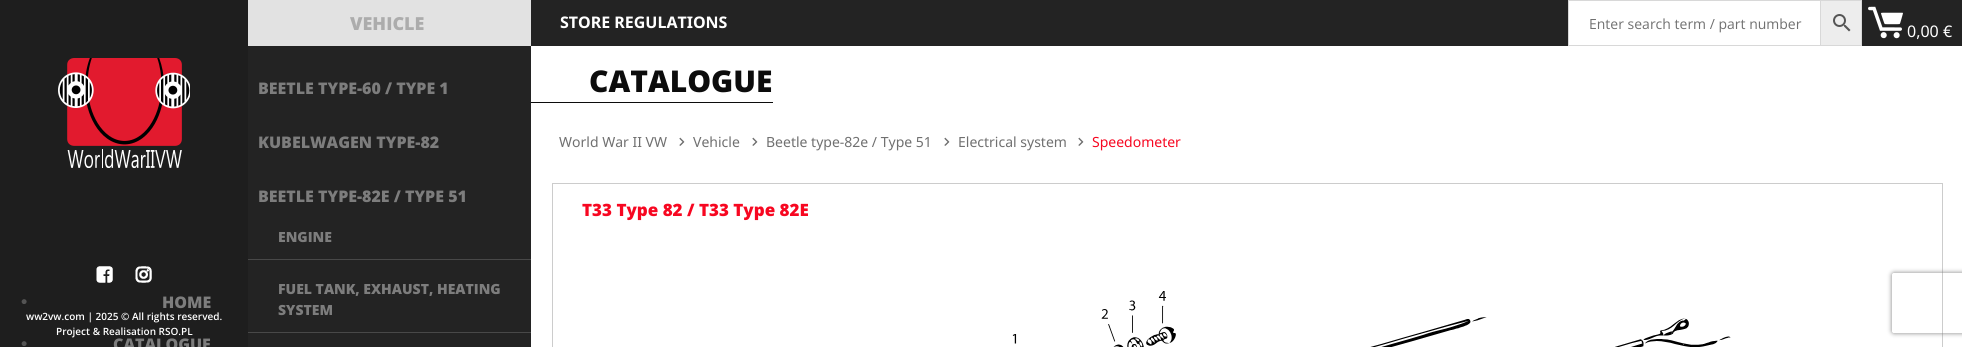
import math
import cairo

surface = cairo.ImageSurface(cairo.FORMAT_RGB24, 1962, 347)
ctx = cairo.Context(surface)
options = cairo.FontOptions()
options.set_hint_metrics(cairo.HINT_METRICS_OFF)
options.set_hint_style(cairo.HINT_STYLE_NONE)
ctx.set_font_options(options)
ctx.set_miter_limit(4)


def round_rect(x, y, w, h, r):
    ctx.new_sub_path()
    for i, (u, v) in enumerate([(x + w - r, y + h - r), (x + r, y + h - r), (x + r, y + r), (x + w - r, y + r)]):
        ctx.arc(u, v, r, i * math.pi / 2, (i + 1) * math.pi / 2)
    ctx.close_path()


def shadow(x, y, w, h, r, blur, alpha):
    ctx.push_group_with_content(cairo.CONTENT_ALPHA)
    ctx.set_operator(cairo.OPERATOR_SOURCE)
    for i in range(15, -16, -2):
        e = blur * i / 6
        if min(w, h) + 2 * e > 0:
            ctx.set_source_rgba(0, 0, 0, alpha * math.erfc((i - 1) / 8.5) / 2)
            round_rect(x - e, y - e, w + 2 * e, h + 2 * e, max(0, min(r + e + blur * .6, min(w, h) / 2 + e)))
            ctx.fill()
    ctx.mask(ctx.pop_group())


def picture(path, x, y, w, h):
    ctx.save()
    ctx.set_source_surface(cairo.ImageSurface.create_from_png(path), x, y)
    ctx.rectangle(x, y, w, h)
    ctx.fill()
    ctx.restore()


ctx.set_source_rgb(1, 1, 1)
ctx.paint()
ctx.set_source_rgb(0.137, 0.137, 0.137)
ctx.rectangle(248, 46, 283, 301)
ctx.fill()
ctx.set_source_rgb(0.886, 0.886, 0.886)
ctx.rectangle(248, 0, 283, 46)
ctx.fill()
ctx.select_font_face("Open Sans ExtraBold")
ctx.set_font_size(18)
ctx.set_source_rgb(0.675, 0.675, 0.675)
ctx.move_to(350, 30)
ctx.show_text("VEHICLE")
ctx.set_font_size(16)
ctx.set_source_rgb(0.49, 0.49, 0.49)
ctx.move_to(258, 94)
ctx.show_text("BEETLE TYPE-60 / TYPE 1")
ctx.move_to(258, 148)
ctx.show_text("KUBELWAGEN TYPE-82")
ctx.move_to(258, 202)
ctx.show_text("BEETLE TYPE-82E / TYPE 51")
ctx.set_source_rgb(0.282, 0.282, 0.282)
ctx.rectangle(248, 259, 283, 1)
ctx.fill()
ctx.set_font_size(14)
ctx.set_source_rgb(0.49, 0.49, 0.49)
ctx.move_to(278, 242)
ctx.show_text("ENGINE")
ctx.set_source_rgb(0.282, 0.282, 0.282)
ctx.rectangle(248, 332, 283, 1)
ctx.fill()
ctx.set_source_rgb(0.49, 0.49, 0.49)
ctx.move_to(278, 294)
ctx.show_text("FUEL TANK, EXHAUST, HEATING")
ctx.move_to(278, 315)
ctx.show_text("SYSTEM")
ctx.set_source_rgb(0.137, 0.137, 0.137)
ctx.rectangle(531, 0, 1431, 46)
ctx.fill()
ctx.select_font_face("Noto Sans", cairo.FONT_SLANT_NORMAL, cairo.FONT_WEIGHT_BOLD)
ctx.set_font_size(16)
ctx.set_source_rgb(1, 1, 1)
ctx.move_to(560, 28)
ctx.show_text("STORE REGULATIONS")
ctx.set_source_rgb(0.929, 0.929, 0.929)
ctx.rectangle(1820.5, 0.5, 41, 45)
ctx.fill_preserve()
ctx.set_source_rgb(0.847, 0.847, 0.847)
ctx.set_line_width(1)
ctx.stroke()
ctx.set_source_rgb(1, 1, 1)
ctx.rectangle(1568.5, 0.5, 252, 45)
ctx.fill_preserve()
ctx.set_source_rgb(0.847, 0.847, 0.847)
ctx.stroke()
ctx.select_font_face("Open Sans")
ctx.set_font_size(14)
ctx.set_source_rgb(0.439, 0.439, 0.439)
ctx.move_to(1589, 29)
ctx.show_text("Enter search term / part number")
picture("img1.png", 1833, 14, 18, 18)
picture("img2.png", 1868, 6, 35, 33)
ctx.select_font_face("Noto Sans")
ctx.set_font_size(16)
ctx.set_source_rgb(1, 1, 1)
ctx.move_to(1907, 37)
ctx.show_text("0,00 €")
ctx.set_source_rgb(0.047, 0.047, 0.047)
ctx.rectangle(531, 102, 242, 1)
ctx.fill()
ctx.select_font_face("Open Sans ExtraBold")
ctx.set_font_size(30)
ctx.move_to(589, 92)
ctx.show_text("CATALOGUE")
ctx.select_font_face("Noto Sans")
ctx.set_font_size(14)
ctx.set_source_rgb(0.439, 0.439, 0.439)
ctx.move_to(559, 147)
ctx.show_text("World War II VW")
picture("img3.png", 679, 137, 6, 9)
ctx.move_to(693, 147)
ctx.show_text("Vehicle")
picture("img3.png", 752, 137, 6, 9)
ctx.move_to(766, 147)
ctx.show_text("Beetle type-82e / Type 51")
picture("img3.png", 944, 137, 6, 9)
ctx.move_to(958, 147)
ctx.show_text("Electrical system")
picture("img3.png", 1078, 137, 6, 9)
ctx.set_source_rgb(0.965, 0.031, 0.129)
ctx.move_to(1092, 147)
ctx.show_text("Speedometer")
ctx.rectangle(552.5, 183.5, 1390, 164)
ctx.set_source_rgb(0.8, 0.8, 0.8)
ctx.stroke()
ctx.select_font_face("Open Sans ExtraBold")
ctx.set_font_size(17)
ctx.set_source_rgb(0.965, 0.031, 0.129)
ctx.move_to(582, 216)
ctx.show_text("T33 Type 82 / T33 Type 82E")
picture("img4.png", 1012, 291, 719, 56)
ctx.set_source_rgb(0.118, 0.118, 0.118)
ctx.rectangle(0, 0, 248, 347)
ctx.fill()
picture("img5.png", 58, 58, 132, 110)
picture("img6.png", 21, 299, 6, 5)
ctx.set_font_size(16)
ctx.set_source_rgb(0.49, 0.49, 0.49)
ctx.move_to(162, 308)
ctx.show_text("HOME")
picture("img6.png", 21, 341, 6, 5)
ctx.move_to(113, 350)
ctx.show_text("CATALOGUE")
picture("img7.png", 96, 266, 17, 17)
picture("img8.png", 135, 266, 17, 17)
ctx.select_font_face("Open Sans SemiBold")
ctx.set_font_size(10)
ctx.set_source_rgb(1, 1, 1)
ctx.move_to(26, 320)
ctx.show_text("ww2vw.com | 2025 © All rights reserved.")
ctx.move_to(56, 335)
ctx.show_text("Project & Realisation RSO.PL")
ctx.save()
ctx.set_fill_rule(cairo.FILL_RULE_EVEN_ODD)
ctx.new_path()
ctx.move_to(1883, 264)
ctx.line_to(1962, 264)
ctx.line_to(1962, 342)
ctx.line_to(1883, 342)
ctx.close_path()
ctx.move_to(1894, 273)
ctx.line_to(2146, 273)
ctx.curve_to(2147, 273, 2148, 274, 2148, 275)
ctx.line_to(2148, 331)
ctx.curve_to(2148, 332, 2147, 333, 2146, 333)
ctx.line_to(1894, 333)
ctx.curve_to(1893, 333, 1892, 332, 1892, 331)
ctx.line_to(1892, 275)
ctx.curve_to(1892, 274, 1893, 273, 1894, 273)
ctx.close_path()
ctx.clip()
ctx.set_source_rgb(0.502, 0.502, 0.502)
shadow(1892, 273, 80, 60, 2, 2.5, 1)
ctx.restore()
surface.write_to_png("page.png")
